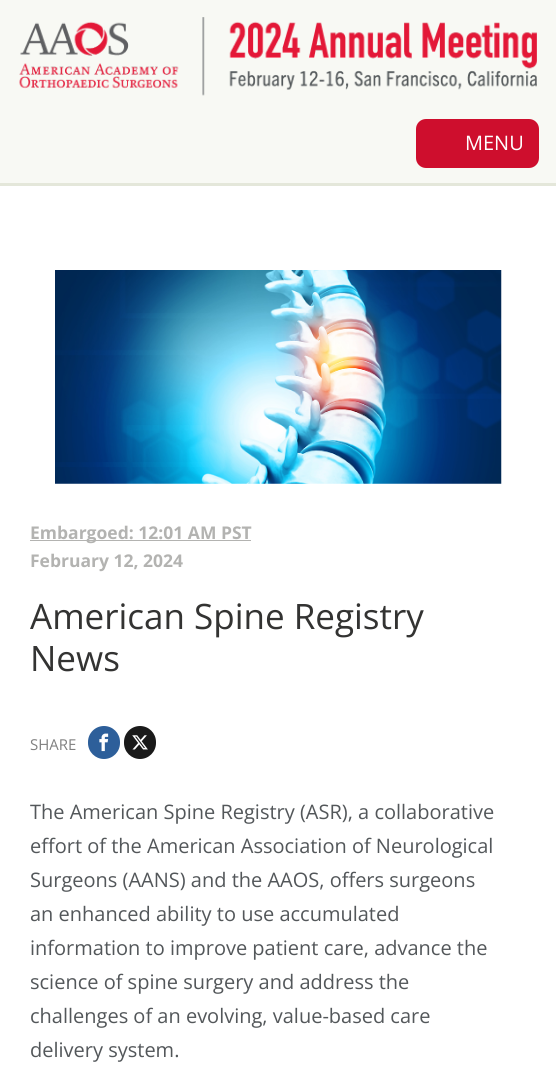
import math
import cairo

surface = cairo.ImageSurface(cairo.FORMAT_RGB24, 556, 1080)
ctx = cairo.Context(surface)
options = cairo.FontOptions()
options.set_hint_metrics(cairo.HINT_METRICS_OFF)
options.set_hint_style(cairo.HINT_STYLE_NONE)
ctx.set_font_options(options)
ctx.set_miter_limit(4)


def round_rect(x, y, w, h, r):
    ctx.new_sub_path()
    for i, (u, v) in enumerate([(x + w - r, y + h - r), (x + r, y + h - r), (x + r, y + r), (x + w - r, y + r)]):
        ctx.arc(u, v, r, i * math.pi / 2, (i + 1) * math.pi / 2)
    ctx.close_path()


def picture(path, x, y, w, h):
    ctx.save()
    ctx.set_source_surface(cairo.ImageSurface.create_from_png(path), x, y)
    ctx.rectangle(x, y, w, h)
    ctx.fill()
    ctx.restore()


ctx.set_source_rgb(1, 1, 1)
ctx.paint()
ctx.set_source_rgb(0.969, 0.973, 0.957)
ctx.rectangle(0, 0, 556, 183)
ctx.fill()
ctx.set_source_rgb(0.894, 0.906, 0.855)
ctx.rectangle(0, 183, 556, 3)
ctx.fill()
picture("img1.png", 19, 17, 518, 79)
ctx.set_source_rgb(0.808, 0.055, 0.176)
round_rect(416, 119, 123, 49, 10)
ctx.fill()
ctx.select_font_face("Open Sans")
ctx.set_font_size(20)
ctx.set_source_rgb(1, 1, 1)
ctx.move_to(465, 150)
ctx.show_text("MENU")
picture("img2.png", 55, 270, 447, 214)
ctx.set_source_rgb(0.702, 0.702, 0.694)
ctx.rectangle(30, 540, 221, 1)
ctx.fill()
ctx.select_font_face("Open Sans", cairo.FONT_SLANT_NORMAL, cairo.FONT_WEIGHT_BOLD)
ctx.set_font_size(17.5)
ctx.move_to(30, 539)
ctx.show_text("Embargoed: 12:01 AM PST")
ctx.move_to(30, 567)
ctx.show_text("February 12, 2024")
ctx.select_font_face("Open Sans")
ctx.set_font_size(35)
ctx.set_source_rgb(0.2, 0.2, 0.196)
ctx.move_to(30, 629)
ctx.show_text("American Spine Registry")
ctx.move_to(30, 671)
ctx.show_text("News")
ctx.set_font_size(15)
ctx.set_source_rgb(0.502, 0.502, 0.502)
ctx.move_to(30, 750)
ctx.show_text("SHARE")
ctx.set_source_rgb(0.176, 0.373, 0.604)
round_rect(88, 726, 32, 33, 16)
ctx.fill()
picture("img3.png", 99, 733, 10, 19)
ctx.set_source_rgb(0.102, 0.102, 0.102)
round_rect(124, 726, 32, 33, 16)
ctx.fill()
picture("img4.png", 132, 735, 16, 15)
ctx.set_font_size(20)
ctx.set_source_rgb(0.325, 0.341, 0.353)
ctx.move_to(30, 819)
ctx.show_text("The American Spine Registry (ASR), a collaborative")
ctx.move_to(30, 853)
ctx.show_text("effort of the American Association of Neurological")
ctx.move_to(30, 887)
ctx.show_text("Surgeons (AANS) and the AAOS, offers surgeons")
ctx.move_to(30, 921)
ctx.show_text("an enhanced ability to use accumulated")
ctx.move_to(30, 955)
ctx.show_text("information to improve patient care, advance the")
ctx.move_to(30, 989)
ctx.show_text("science of spine surgery and address the")
ctx.move_to(30, 1023)
ctx.show_text("challenges of an evolving, value-based care")
ctx.move_to(30, 1057)
ctx.show_text("delivery system.")
surface.write_to_png("page.png")
